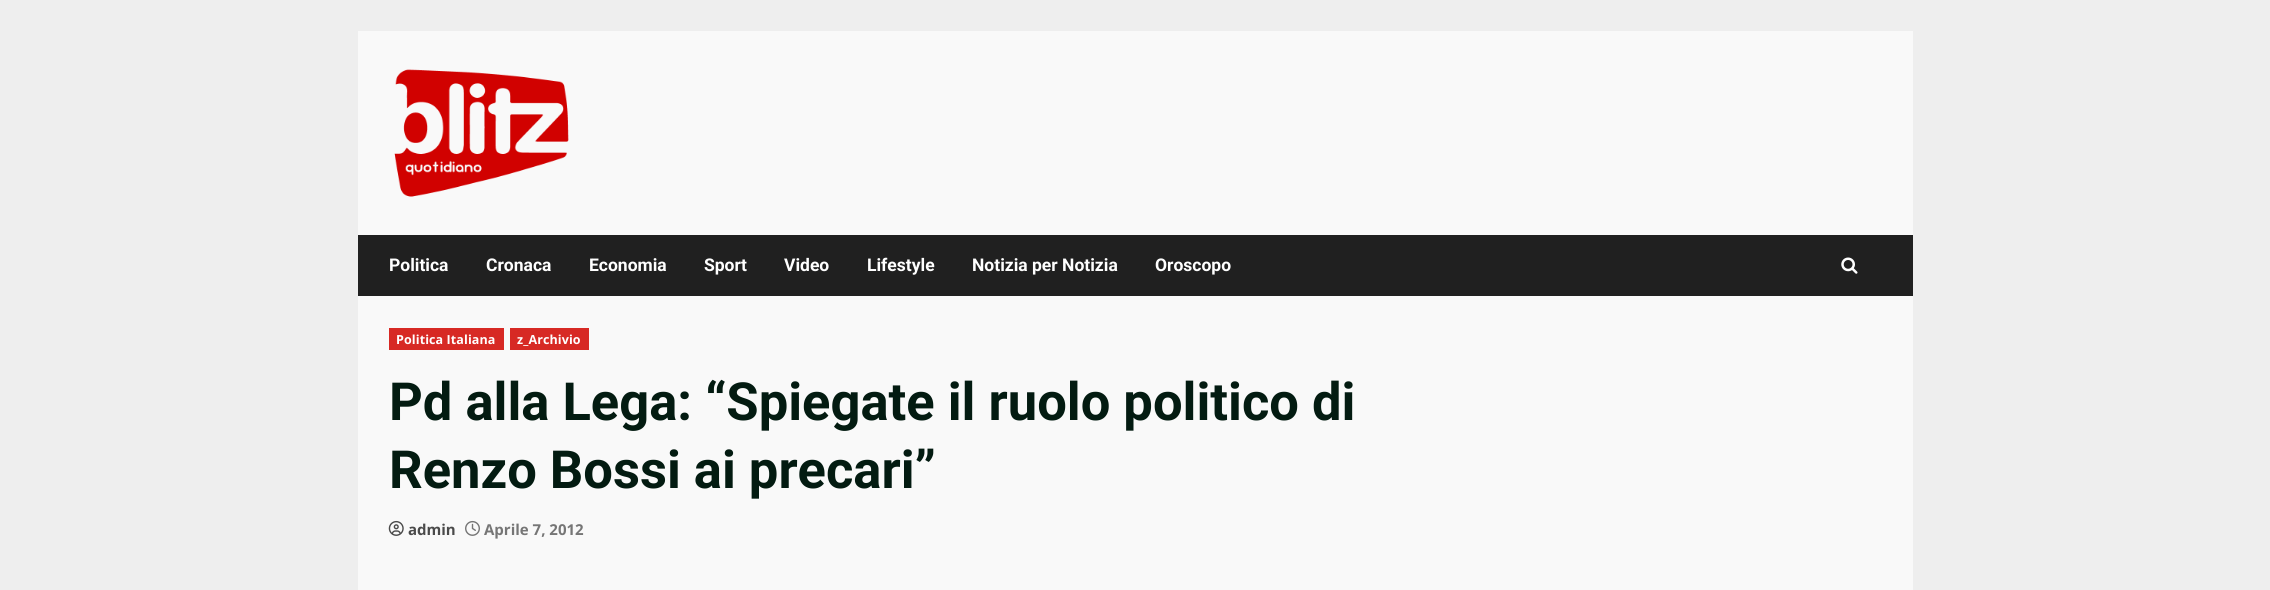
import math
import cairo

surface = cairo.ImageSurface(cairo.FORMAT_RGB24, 2270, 590)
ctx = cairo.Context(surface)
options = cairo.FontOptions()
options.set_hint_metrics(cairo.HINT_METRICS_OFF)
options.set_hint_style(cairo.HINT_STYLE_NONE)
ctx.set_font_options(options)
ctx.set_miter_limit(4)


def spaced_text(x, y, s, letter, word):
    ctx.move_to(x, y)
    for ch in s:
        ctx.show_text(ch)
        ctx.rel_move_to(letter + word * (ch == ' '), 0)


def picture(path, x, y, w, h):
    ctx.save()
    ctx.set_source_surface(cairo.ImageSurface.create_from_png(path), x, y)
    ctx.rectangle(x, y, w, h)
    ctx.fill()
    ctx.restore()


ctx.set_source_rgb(0.933, 0.933, 0.933)
ctx.paint()
ctx.set_source_rgb(0.976, 0.976, 0.976)
ctx.rectangle(358, 31, 1555, 559)
ctx.fill()
picture("img1.png", 394, 69, 175, 128)
ctx.set_source_rgb(0.125, 0.125, 0.125)
ctx.rectangle(358, 235, 1555, 61)
ctx.fill()
ctx.select_font_face("Roboto", cairo.FONT_SLANT_NORMAL, cairo.FONT_WEIGHT_BOLD)
ctx.set_font_size(17.5)
ctx.set_source_rgb(1, 1, 1)
ctx.move_to(389, 271)
ctx.show_text("Politica")
ctx.move_to(486, 271)
ctx.show_text("Cronaca")
ctx.move_to(589, 271)
ctx.show_text("Economia")
ctx.move_to(704, 271)
ctx.show_text("Sport")
ctx.move_to(784, 271)
ctx.show_text("Video")
ctx.move_to(867, 271)
ctx.show_text("Lifestyle")
ctx.move_to(972, 271)
ctx.show_text("Notizia per Notizia")
ctx.move_to(1155, 271)
ctx.show_text("Oroscopo")
picture("img2.png", 1841, 257, 17, 17)
ctx.set_source_rgb(0.843, 0.161, 0.141)
ctx.rectangle(389, 328, 115, 22)
ctx.fill()
ctx.select_font_face("Open Sans", cairo.FONT_SLANT_NORMAL, cairo.FONT_WEIGHT_BOLD)
ctx.set_font_size(12.5)
ctx.set_source_rgb(1, 1, 1)
spaced_text(396, 344, "Politica Italiana", 0.1, 0)
ctx.set_source_rgb(0.843, 0.161, 0.141)
ctx.rectangle(510, 328, 79, 22)
ctx.fill()
ctx.set_source_rgb(1, 1, 1)
spaced_text(517, 344, "z_Archivio", 0.1, 0)
ctx.select_font_face("Roboto", cairo.FONT_SLANT_NORMAL, cairo.FONT_WEIGHT_BOLD)
ctx.set_font_size(52.5)
ctx.set_source_rgb(0.012, 0.106, 0.067)
ctx.move_to(389, 420)
ctx.show_text("Pd alla Lega: “Spiegate il ruolo politico di")
ctx.move_to(389, 488)
ctx.show_text("Renzo Bossi ai precari”")
picture("img3.png", 388, 520, 16, 16)
ctx.select_font_face("Open Sans", cairo.FONT_SLANT_NORMAL, cairo.FONT_WEIGHT_BOLD)
ctx.set_font_size(15)
ctx.set_source_rgb(0.29, 0.29, 0.29)
ctx.move_to(408, 535)
ctx.show_text("admin")
picture("img4.png", 465, 520, 15, 16)
ctx.set_source_rgb(0.463, 0.463, 0.463)
ctx.move_to(484, 535)
ctx.show_text("Aprile 7, 2012")
surface.write_to_png("page.png")
